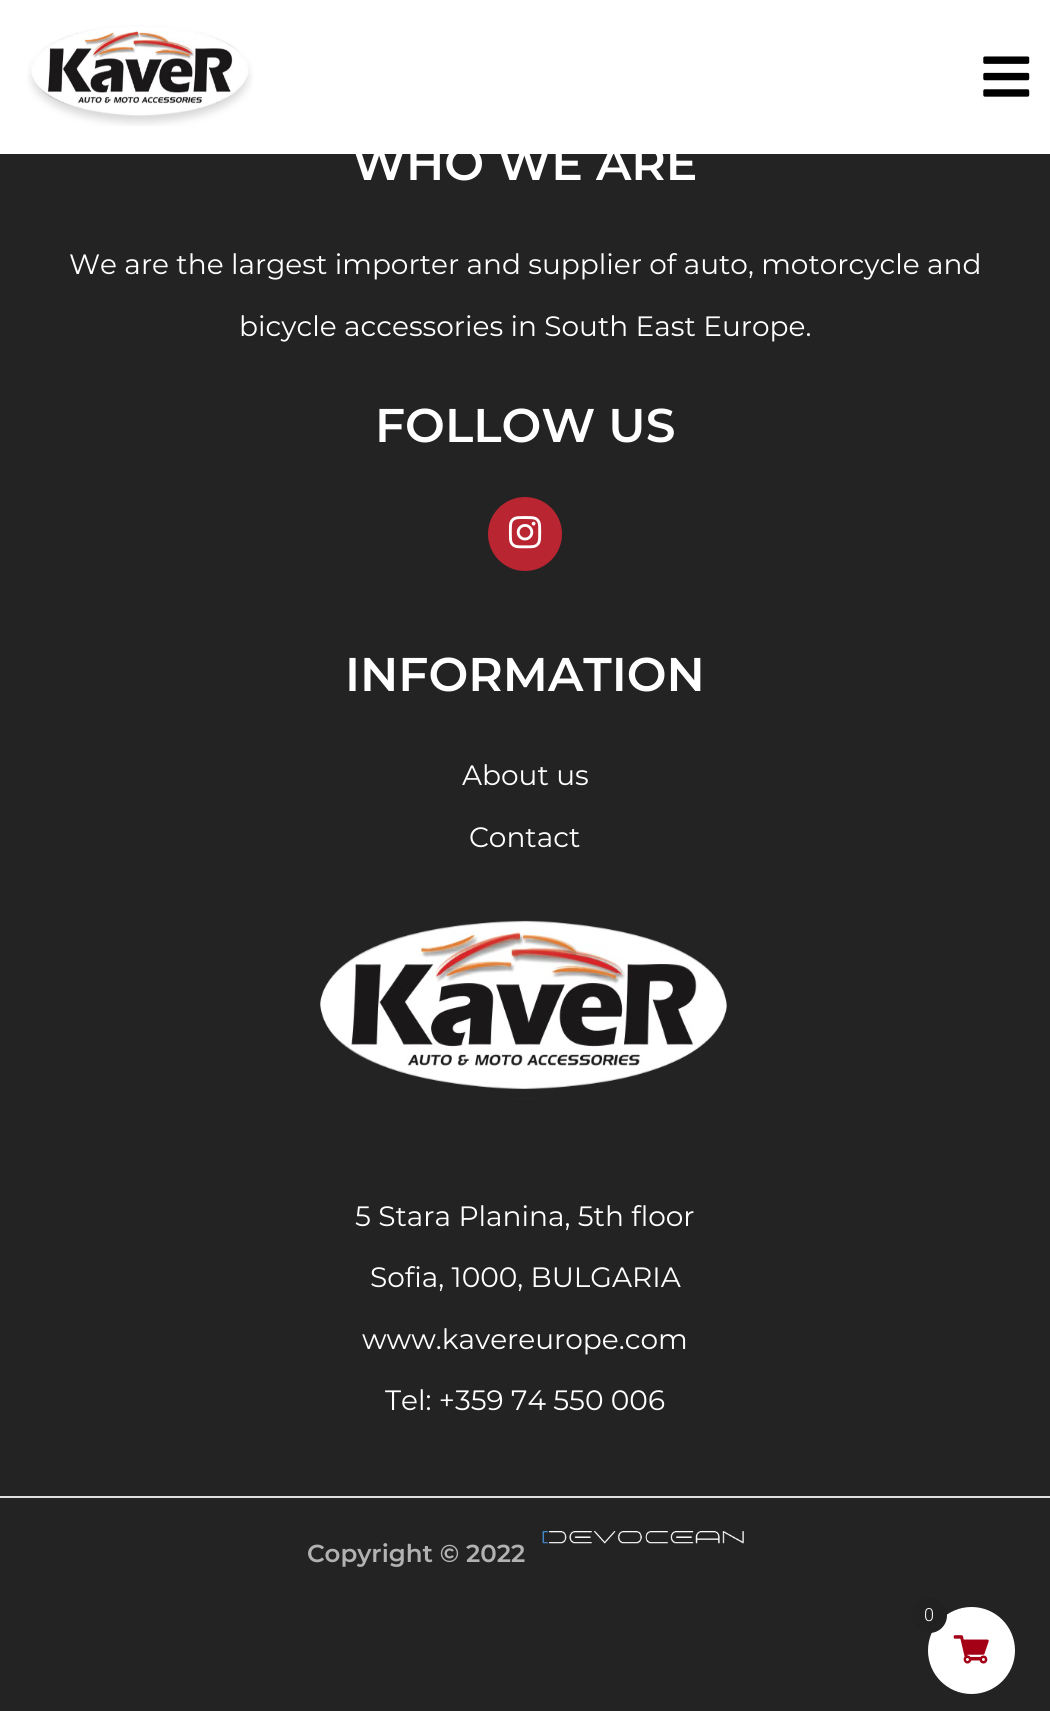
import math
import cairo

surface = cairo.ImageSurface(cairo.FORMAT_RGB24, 1050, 1711)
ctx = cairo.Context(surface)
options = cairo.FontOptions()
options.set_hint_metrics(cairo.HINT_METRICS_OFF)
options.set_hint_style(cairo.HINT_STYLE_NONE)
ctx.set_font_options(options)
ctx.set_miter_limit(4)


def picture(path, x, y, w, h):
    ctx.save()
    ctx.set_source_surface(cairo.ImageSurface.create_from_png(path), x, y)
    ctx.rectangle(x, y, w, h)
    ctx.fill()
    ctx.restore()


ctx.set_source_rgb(0.137, 0.137, 0.137)
ctx.paint()
ctx.set_source_rgb(1, 1, 1)
ctx.rectangle(0, 0, 1050, 154)
ctx.fill()
picture("img1.png", 27, 25, 226, 101)
picture("img2.png", 983, 56, 47, 41)
ctx.select_font_face("Montserrat SemiBold")
ctx.set_font_size(47.25)
ctx.move_to(352, 180)
ctx.show_text("WHO WE ARE")
ctx.select_font_face("Montserrat")
ctx.set_font_size(28)
ctx.move_to(69, 274)
ctx.show_text("We are the largest importer and supplier of auto, motorcycle and")
ctx.move_to(239, 336)
ctx.show_text("bicycle accessories in South East Europe.")
ctx.select_font_face("Montserrat SemiBold")
ctx.set_font_size(47.25)
ctx.move_to(375, 442)
ctx.show_text("FOLLOW US")
ctx.set_source_rgb(0.725, 0.145, 0.192)
ctx.new_path()
ctx.arc(525, 534, 37, 0, 2 * math.pi)
ctx.fill()
picture("img3.png", 508, 516, 34, 33)
ctx.set_source_rgb(1, 1, 1)
ctx.move_to(345, 691)
ctx.show_text("INFORMATION")
ctx.select_font_face("Montserrat")
ctx.set_font_size(28)
ctx.move_to(462, 785)
ctx.show_text("About us")
ctx.move_to(469, 847)
ctx.show_text("Contact")
picture("img4.png", 320, 920, 407, 179)
ctx.move_to(355, 1226)
ctx.show_text("5 Stara Planina, 5th floor")
ctx.move_to(370, 1287)
ctx.show_text("Sofia, 1000, BULGARIA")
ctx.move_to(362, 1349)
ctx.show_text("www.kavereurope.com")
ctx.move_to(385, 1410)
ctx.show_text("Tel: +359 74 550 006")
ctx.set_source_rgb(0.878, 0.878, 0.878)
ctx.rectangle(0, 1496, 1050, 2)
ctx.fill()
picture("img5.png", 542, 1531, 202, 13)
ctx.select_font_face("Montserrat SemiBold")
ctx.set_font_size(24.5)
ctx.set_source_rgb(0.698, 0.698, 0.698)
ctx.move_to(307, 1562)
ctx.show_text("Copyright © 2022")
ctx.set_source_rgb(1, 1, 1)
ctx.new_path()
ctx.arc(971.5, 1650.5, 43.5, 0, 2 * math.pi)
ctx.fill()
ctx.set_source_rgb(0.129, 0.129, 0.129)
ctx.arc(929.5, 1615.5, 17.5, 0, 2 * math.pi)
ctx.fill()
ctx.select_font_face("Roboto Light")
ctx.set_font_size(18)
ctx.set_source_rgb(1, 1, 1)
ctx.move_to(924, 1621)
ctx.show_text("0")
picture("img6.png", 953, 1635, 36, 29)
surface.write_to_png("page.png")
